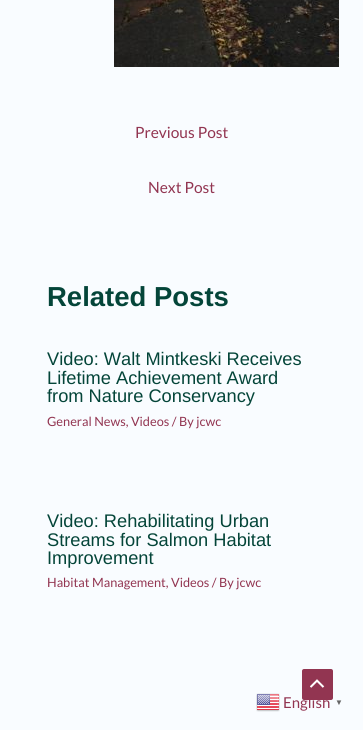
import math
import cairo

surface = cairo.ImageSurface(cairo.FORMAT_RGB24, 363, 730)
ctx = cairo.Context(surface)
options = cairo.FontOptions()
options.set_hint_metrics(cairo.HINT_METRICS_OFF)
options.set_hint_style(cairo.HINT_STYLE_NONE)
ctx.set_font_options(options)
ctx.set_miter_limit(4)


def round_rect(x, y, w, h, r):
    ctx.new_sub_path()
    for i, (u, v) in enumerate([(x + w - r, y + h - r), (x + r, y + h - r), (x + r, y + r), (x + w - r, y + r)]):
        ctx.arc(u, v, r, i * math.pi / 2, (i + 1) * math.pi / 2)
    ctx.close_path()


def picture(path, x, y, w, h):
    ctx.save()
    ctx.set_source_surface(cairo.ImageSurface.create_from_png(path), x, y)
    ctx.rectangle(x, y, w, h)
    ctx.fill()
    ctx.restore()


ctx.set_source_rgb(0.976, 0.988, 1)
ctx.paint()
picture("img1.png", 114, 0, 225, 67)
ctx.select_font_face("Lato")
ctx.set_font_size(15.5)
ctx.set_source_rgb(0.573, 0.208, 0.318)
ctx.move_to(135, 138)
ctx.show_text("Previous Post")
ctx.move_to(148, 193)
ctx.show_text("Next Post")
ctx.select_font_face("Liberation Sans", cairo.FONT_SLANT_NORMAL, cairo.FONT_WEIGHT_BOLD)
ctx.set_font_size(27.5)
ctx.set_source_rgb(0.016, 0.271, 0.224)
ctx.move_to(47, 306)
ctx.show_text("Related Posts")
ctx.select_font_face("Liberation Sans")
ctx.set_font_size(18.25)
ctx.move_to(47, 365)
ctx.show_text("Video: Walt Mintkeski Receives")
ctx.move_to(47, 384)
ctx.show_text("Lifetime Achievement Award")
ctx.move_to(47, 402)
ctx.show_text("from Nature Conservancy")
ctx.select_font_face("Lato")
ctx.set_font_size(12.75)
ctx.set_source_rgb(0.573, 0.208, 0.318)
ctx.move_to(47, 426)
ctx.show_text("General News, Videos / By jcwc")
ctx.select_font_face("Liberation Sans")
ctx.set_font_size(18.25)
ctx.set_source_rgb(0.016, 0.271, 0.224)
ctx.move_to(47, 527)
ctx.show_text("Video: Rehabilitating Urban")
ctx.move_to(47, 546)
ctx.show_text("Streams for Salmon Habitat")
ctx.move_to(47, 564)
ctx.show_text("Improvement")
ctx.select_font_face("Lato")
ctx.set_font_size(12.75)
ctx.set_source_rgb(0.573, 0.208, 0.318)
ctx.move_to(47, 587)
ctx.show_text("Habitat Management, Videos / By jcwc")
round_rect(302, 669, 31, 31, 2)
ctx.fill()
picture("img2.png", 310, 679, 15, 9)
picture("img3.png", 256, 693, 24, 19)
ctx.set_font_size(15)
ctx.move_to(283, 708)
ctx.show_text("English")
ctx.select_font_face("Liberation Sans", cairo.FONT_SLANT_NORMAL, cairo.FONT_WEIGHT_BOLD)
ctx.set_font_size(8)
ctx.set_source_rgb(0.4, 0.4, 0.4)
ctx.move_to(335, 705)
ctx.show_text("▼")
surface.write_to_png("page.png")
